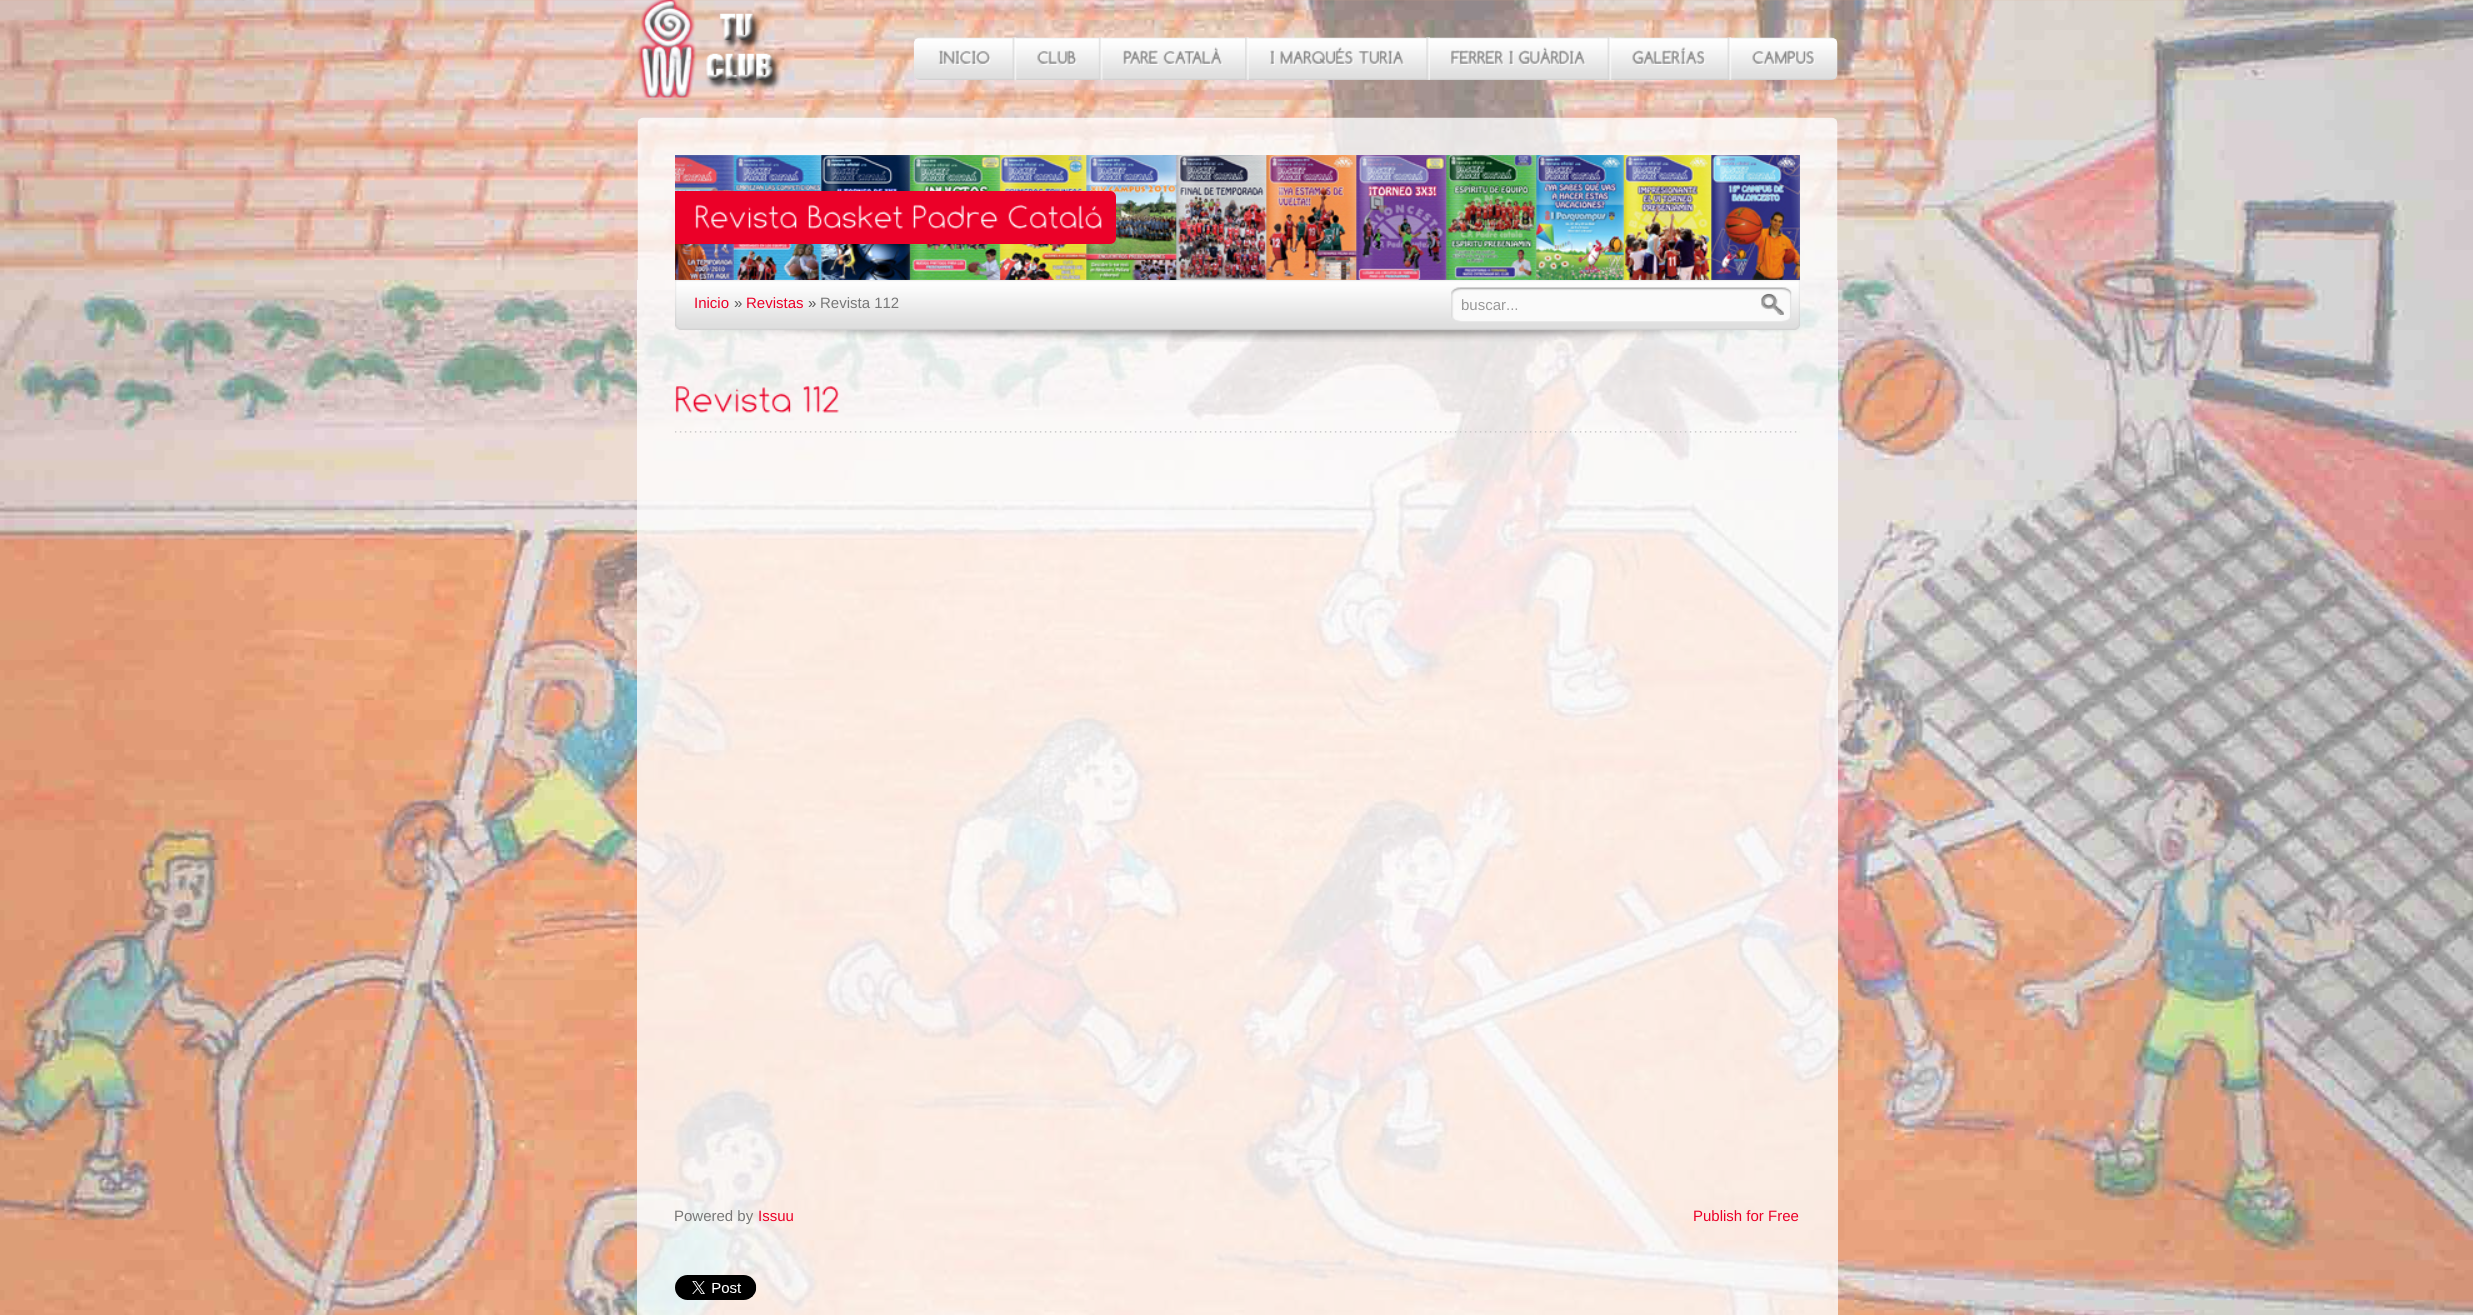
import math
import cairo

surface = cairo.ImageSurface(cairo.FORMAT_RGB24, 2473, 1315)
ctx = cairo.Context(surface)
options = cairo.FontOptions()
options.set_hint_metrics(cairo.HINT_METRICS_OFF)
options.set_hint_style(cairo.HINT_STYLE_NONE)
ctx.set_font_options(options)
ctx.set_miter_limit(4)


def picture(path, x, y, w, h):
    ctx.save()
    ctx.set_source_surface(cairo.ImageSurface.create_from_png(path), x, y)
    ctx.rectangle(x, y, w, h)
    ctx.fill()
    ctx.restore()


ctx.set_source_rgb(1, 1, 1)
ctx.paint()
picture("img1.png", 0, 0, 2473, 1315)
picture("img2.png", 637, 0, 144, 98)
picture("img3.png", 913, 37, 925, 43)
picture("img4.png", 938, 50, 53, 15)
picture("img5.png", 1012, 37, 5, 43)
picture("img6.png", 1037, 50, 40, 16)
picture("img7.png", 1098, 37, 5, 43)
picture("img8.png", 1123, 50, 36, 15)
picture("img9.png", 1163, 47, 60, 18)
picture("img10.png", 1245, 37, 4, 43)
picture("img11.png", 1270, 50, 5, 15)
picture("img12.png", 1280, 47, 74, 18)
picture("img13.png", 1358, 50, 47, 15)
picture("img14.png", 1426, 37, 4, 43)
picture("img15.png", 1451, 50, 53, 15)
picture("img16.png", 1508, 50, 6, 15)
picture("img17.png", 1518, 47, 68, 18)
picture("img18.png", 1607, 37, 5, 43)
picture("img19.png", 1632, 47, 74, 18)
picture("img20.png", 1727, 37, 5, 43)
picture("img21.png", 1752, 50, 63, 15)
picture("img22.png", 637, 117, 1201, 163)
picture("img23.png", 675, 155, 1125, 125)
ctx.set_source_rgb(0.918, 0, 0.157)
ctx.new_path()
ctx.move_to(675, 191)
ctx.line_to(1110, 191)
ctx.curve_to(1113.5, 191, 1116, 193.5, 1116, 197)
ctx.line_to(1116, 238)
ctx.curve_to(1116, 241.5, 1113.5, 244, 1110, 244)
ctx.line_to(675, 244)
ctx.close_path()
ctx.fill()
picture("img24.png", 695, 204, 102, 25)
picture("img25.png", 808, 204, 95, 25)
picture("img26.png", 912, 204, 86, 25)
picture("img27.png", 1008, 204, 94, 25)
ctx.set_source_rgba(1, 1, 1, 0.77)
ctx.rectangle(637, 280, 1201, 1035)
ctx.fill()
picture("img28.png", 675, 280, 1125, 62)
ctx.select_font_face("Liberation Sans")
ctx.set_font_size(15)
ctx.set_source_rgb(0.918, 0, 0.157)
ctx.move_to(694, 308)
ctx.show_text("Inicio")
ctx.set_source_rgb(0.333, 0.333, 0.333)
ctx.move_to(734, 308)
ctx.show_text("»")
ctx.set_source_rgb(0.918, 0, 0.157)
ctx.move_to(746, 308)
ctx.show_text("Revistas")
ctx.set_source_rgb(0.333, 0.333, 0.333)
ctx.move_to(808, 308)
ctx.show_text("»")
ctx.set_source_rgb(0.467, 0.467, 0.467)
ctx.move_to(820, 308)
ctx.show_text("Revista 112")
picture("img29.png", 1451, 287, 341, 35)
ctx.set_source_rgb(0.6, 0.6, 0.6)
ctx.move_to(1461, 310)
ctx.show_text("buscar...")
picture("img30.png", 1761, 293, 23, 22)
picture("img31.png", 675, 431, 1125, 2)
picture("img32.png", 675, 386, 117, 27)
picture("img33.png", 803, 386, 36, 27)
ctx.set_source_rgb(0.467, 0.467, 0.467)
ctx.move_to(674, 1221)
ctx.show_text("Powered by")
ctx.set_source_rgb(0.918, 0, 0.157)
ctx.move_to(758, 1221)
ctx.show_text("Issuu")
ctx.move_to(1693, 1221)
ctx.show_text("Publish for Free")
picture("img34.png", 675, 1275, 82, 25)
surface.write_to_png("page.png")
